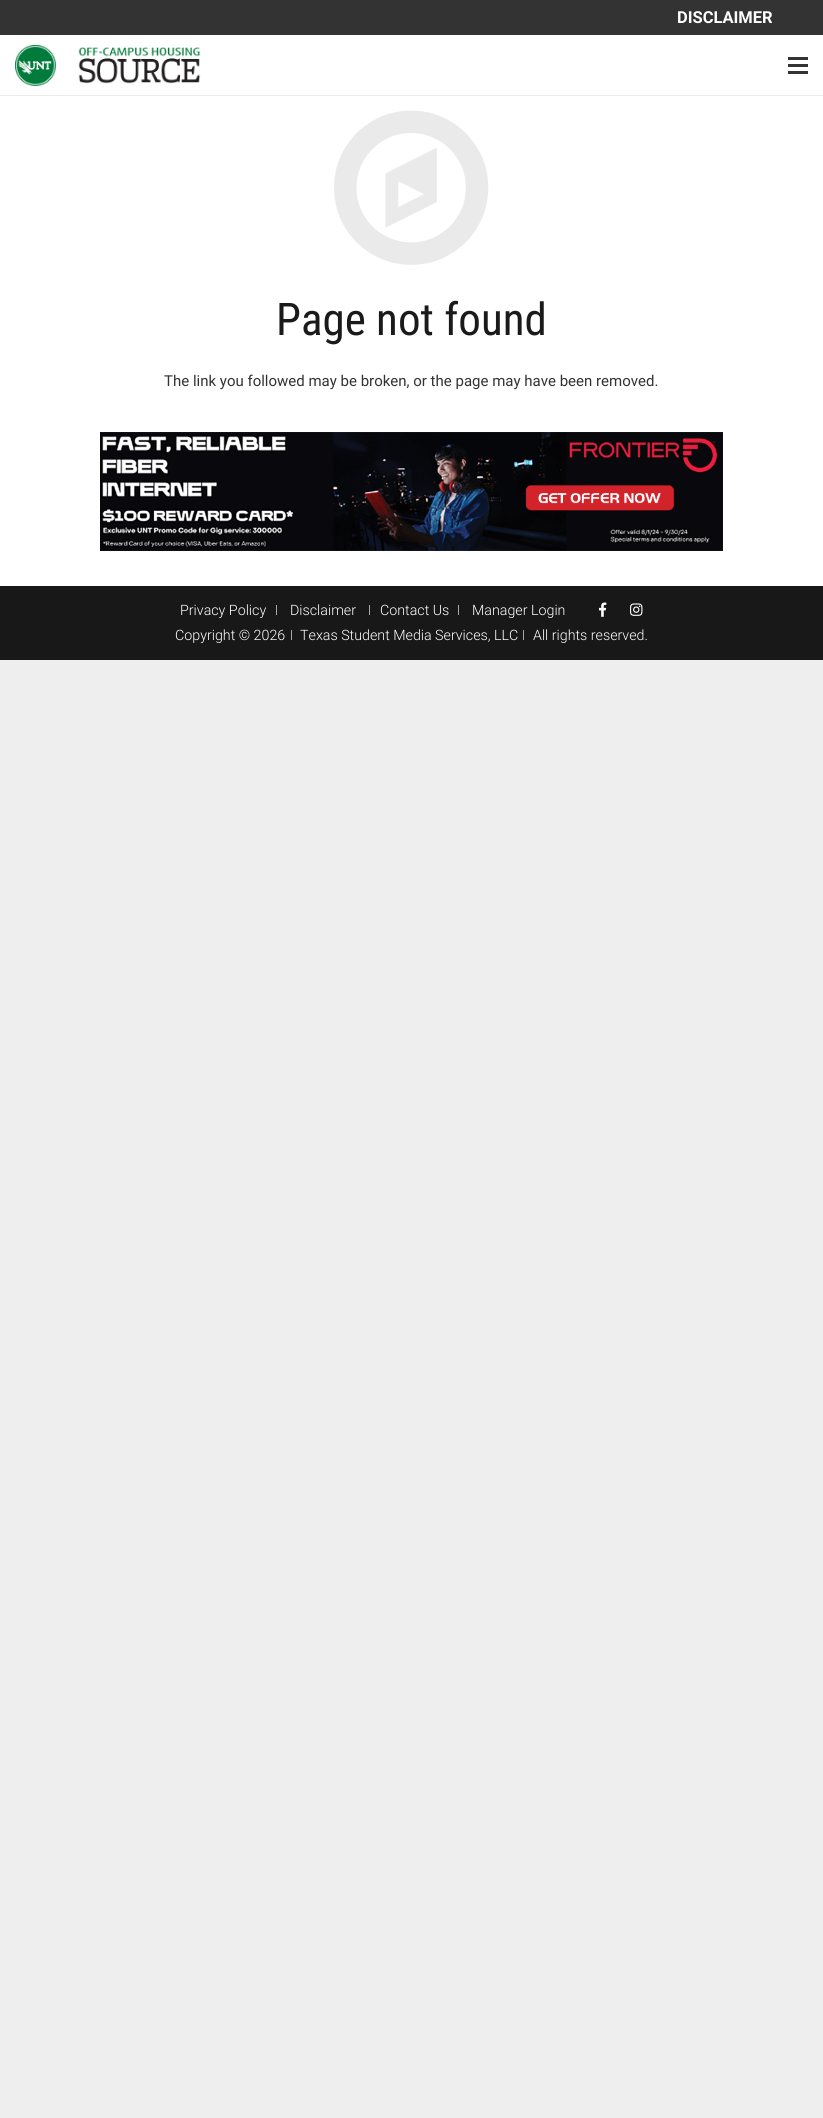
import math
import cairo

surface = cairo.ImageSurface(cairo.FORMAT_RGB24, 823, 2118)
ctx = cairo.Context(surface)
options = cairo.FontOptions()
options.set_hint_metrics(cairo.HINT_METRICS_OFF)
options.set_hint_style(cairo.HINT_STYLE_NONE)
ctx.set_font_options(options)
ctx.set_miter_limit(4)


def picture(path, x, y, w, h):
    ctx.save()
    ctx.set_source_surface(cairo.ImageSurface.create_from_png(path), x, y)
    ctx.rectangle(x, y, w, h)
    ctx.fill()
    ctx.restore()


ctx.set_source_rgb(0.933, 0.933, 0.933)
ctx.paint()
ctx.set_source_rgb(1, 1, 1)
ctx.rectangle(0, 35, 823, 551)
ctx.fill()
ctx.set_source_rgb(0.2, 0.2, 0.2)
ctx.rectangle(0, 0, 823, 35)
ctx.fill()
ctx.select_font_face("Roboto", cairo.FONT_SLANT_NORMAL, cairo.FONT_WEIGHT_BOLD)
ctx.set_font_size(16.5)
ctx.set_source_rgb(1, 1, 1)
ctx.move_to(677, 23)
ctx.show_text("DISCLAIMER")
ctx.set_source_rgb(0.922, 0.922, 0.922)
ctx.rectangle(0, 95, 823, 1)
ctx.fill()
picture("img1.png", 15, 45, 41, 41)
picture("img2.png", 78, 47, 123, 37)
ctx.set_source_rgb(0.2, 0.2, 0.2)
ctx.rectangle(788, 64, 20, 3)
ctx.fill()
ctx.rectangle(788, 57, 20, 3)
ctx.fill()
ctx.rectangle(788, 71, 20, 3)
ctx.fill()
picture("img3.png", 334, 110, 155, 155)
ctx.select_font_face("Roboto Condensed")
ctx.set_font_size(45)
ctx.set_source_rgb(0.102, 0.102, 0.102)
ctx.move_to(276, 335)
ctx.show_text("Page not found")
ctx.select_font_face("Roboto")
ctx.set_font_size(15)
ctx.set_source_rgb(0.2, 0.2, 0.2)
ctx.move_to(164, 386)
ctx.show_text("The link you followed may be broken, or the page may have been removed.")
picture("img4.png", 100, 432, 623, 119)
ctx.set_source_rgb(0.094, 0.094, 0.094)
ctx.rectangle(0, 586, 823, 74)
ctx.fill()
ctx.select_font_face("Roboto Light")
ctx.set_font_size(14.25)
ctx.set_source_rgb(1, 1, 1)
ctx.move_to(180, 615)
ctx.show_text("Privacy Policy")
ctx.set_source_rgb(0.655, 0.655, 0.655)
ctx.rectangle(276, 605, 1, 10)
ctx.fill()
ctx.set_source_rgb(1, 1, 1)
ctx.move_to(290, 615)
ctx.show_text("Disclaimer")
ctx.set_source_rgb(0.655, 0.655, 0.655)
ctx.rectangle(369, 605, 1, 10)
ctx.fill()
ctx.set_source_rgb(1, 1, 1)
ctx.move_to(380, 615)
ctx.show_text("Contact Us")
ctx.set_source_rgb(0.655, 0.655, 0.655)
ctx.rectangle(458, 605, 1, 10)
ctx.fill()
ctx.set_source_rgb(1, 1, 1)
ctx.move_to(472, 615)
ctx.show_text("Manager Login")
picture("img5.png", 599, 602, 8, 15)
picture("img6.png", 630, 603, 13, 13)
ctx.move_to(175, 640)
ctx.show_text("Copyright © 2026")
ctx.set_source_rgb(0.655, 0.655, 0.655)
ctx.rectangle(291, 630, 1, 10)
ctx.fill()
ctx.set_source_rgb(1, 1, 1)
ctx.move_to(300, 640)
ctx.show_text("Texas Student Media Services, LLC")
ctx.set_source_rgb(0.655, 0.655, 0.655)
ctx.rectangle(523, 630, 1, 10)
ctx.fill()
ctx.set_source_rgb(1, 1, 1)
ctx.move_to(533, 640)
ctx.show_text("All rights reserved.")
surface.write_to_png("page.png")
